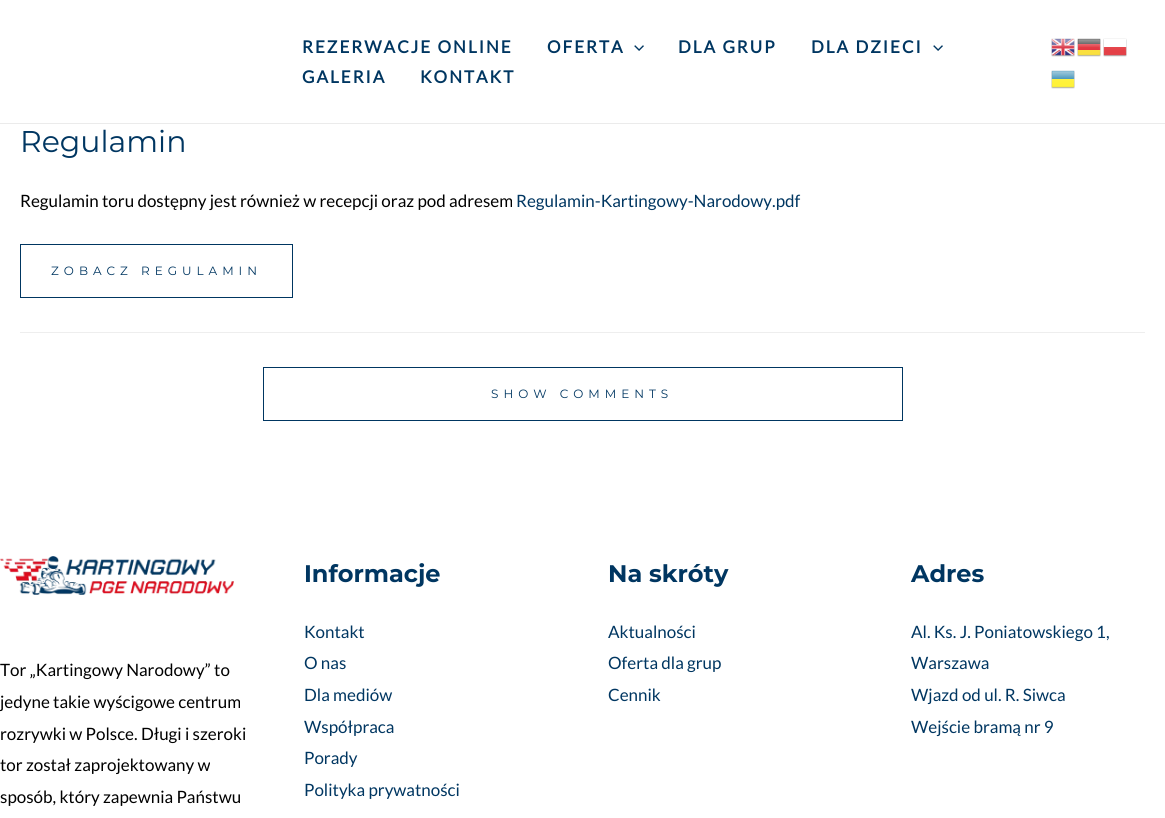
import math
import cairo

surface = cairo.ImageSurface(cairo.FORMAT_RGB24, 1165, 818)
ctx = cairo.Context(surface)
options = cairo.FontOptions()
options.set_hint_metrics(cairo.HINT_METRICS_OFF)
options.set_hint_style(cairo.HINT_STYLE_NONE)
ctx.set_font_options(options)
ctx.set_miter_limit(4)


def spaced_text(x, y, s, letter, word):
    ctx.move_to(x, y)
    for ch in s:
        ctx.show_text(ch)
        ctx.rel_move_to(letter + word * (ch == ' '), 0)


def picture(path, x, y, w, h):
    ctx.save()
    ctx.set_source_surface(cairo.ImageSurface.create_from_png(path), x, y)
    ctx.rectangle(x, y, w, h)
    ctx.fill()
    ctx.restore()


ctx.set_source_rgb(1, 1, 1)
ctx.paint()
ctx.set_source_rgb(0.918, 0.918, 0.918)
ctx.rectangle(0, 123, 1165, 1)
ctx.fill()
ctx.select_font_face("Lato", cairo.FONT_SLANT_NORMAL, cairo.FONT_WEIGHT_BOLD)
ctx.set_font_size(17)
ctx.set_source_rgb(0, 0.212, 0.38)
spaced_text(302, 53, "REZERWACJE ONLINE", 2, 0)
spaced_text(547, 53, "OFERTA", 2, 0)
picture("img1.png", 634, 45, 10, 6)
spaced_text(678, 53, "DLA GRUP", 2, 0)
spaced_text(811, 53, "DLA DZIECI", 2, 0)
picture("img1.png", 933, 45, 10, 6)
spaced_text(302, 83, "GALERIA", 2, 0)
spaced_text(420, 83, "KONTAKT", 2, 0)
picture("img2.png", 1051, 38, 24, 19)
picture("img3.png", 1077, 38, 24, 19)
picture("img4.png", 1103, 38, 24, 19)
picture("img5.png", 1051, 70, 24, 19)
ctx.select_font_face("Montserrat")
ctx.set_font_size(30)
ctx.move_to(20, 152)
ctx.show_text("Regulamin")
ctx.select_font_face("Lato")
ctx.set_font_size(17)
ctx.set_source_rgb(0, 0, 0)
ctx.move_to(20, 207)
ctx.show_text("Regulamin toru dostępny jest również w recepcji oraz pod adresem")
ctx.set_source_rgb(0, 0.212, 0.38)
ctx.move_to(516, 207)
ctx.show_text("Regulamin-Kartingowy-Narodowy.pdf")
ctx.rectangle(20.5, 244.5, 272, 53)
ctx.set_line_width(1)
ctx.stroke()
ctx.select_font_face("Montserrat")
ctx.set_font_size(12)
spaced_text(51, 275, "ZOBACZ REGULAMIN", 5, 0)
ctx.set_source_rgb(0.933, 0.933, 0.933)
ctx.rectangle(20, 332, 1125, 1)
ctx.fill()
ctx.rectangle(263.5, 367.5, 639, 53)
ctx.set_source_rgb(0, 0.212, 0.38)
ctx.stroke()
spaced_text(491, 398, "SHOW COMMENTS", 5, 0)
picture("img6.png", 0, 556, 234, 39)
ctx.select_font_face("Lato")
ctx.set_font_size(17)
ctx.set_source_rgb(0, 0, 0)
ctx.move_to(0, 676)
ctx.show_text("Tor „Kartingowy Narodowy” to")
ctx.move_to(0, 708)
ctx.show_text("jedyne takie wyścigowe centrum")
ctx.move_to(0, 740)
ctx.show_text("rozrywki w Polsce. Długi i szeroki")
ctx.move_to(0, 771)
ctx.show_text("tor został zaprojektowany w")
ctx.move_to(0, 803)
ctx.show_text("sposób, który zapewnia Państwu")
ctx.select_font_face("Montserrat", cairo.FONT_SLANT_NORMAL, cairo.FONT_WEIGHT_BOLD)
ctx.set_font_size(24)
ctx.set_source_rgb(0, 0.212, 0.38)
ctx.move_to(304, 582)
ctx.show_text("Informacje")
ctx.select_font_face("Lato")
ctx.set_font_size(17)
ctx.move_to(304, 638)
ctx.show_text("Kontakt")
ctx.move_to(304, 669)
ctx.show_text("O nas")
ctx.move_to(304, 701)
ctx.show_text("Dla mediów")
ctx.move_to(304, 733)
ctx.show_text("Współpraca")
ctx.move_to(304, 764)
ctx.show_text("Porady")
ctx.move_to(304, 796)
ctx.show_text("Polityka prywatności")
ctx.select_font_face("Montserrat", cairo.FONT_SLANT_NORMAL, cairo.FONT_WEIGHT_BOLD)
ctx.set_font_size(24)
ctx.move_to(608, 582)
ctx.show_text("Na skróty")
ctx.select_font_face("Lato")
ctx.set_font_size(17)
ctx.move_to(608, 638)
ctx.show_text("Aktualności")
ctx.move_to(608, 669)
ctx.show_text("Oferta dla grup")
ctx.move_to(608, 701)
ctx.show_text("Cennik")
ctx.select_font_face("Montserrat", cairo.FONT_SLANT_NORMAL, cairo.FONT_WEIGHT_BOLD)
ctx.set_font_size(24)
ctx.move_to(911, 582)
ctx.show_text("Adres")
ctx.select_font_face("Lato")
ctx.set_font_size(17)
ctx.move_to(911, 638)
ctx.show_text("Al. Ks. J. Poniatowskiego 1,")
ctx.move_to(911, 669)
ctx.show_text("Warszawa")
ctx.move_to(911, 701)
ctx.show_text("Wjazd od ul. R. Siwca")
ctx.move_to(911, 733)
ctx.show_text("Wejście bramą nr 9")
surface.write_to_png("page.png")
